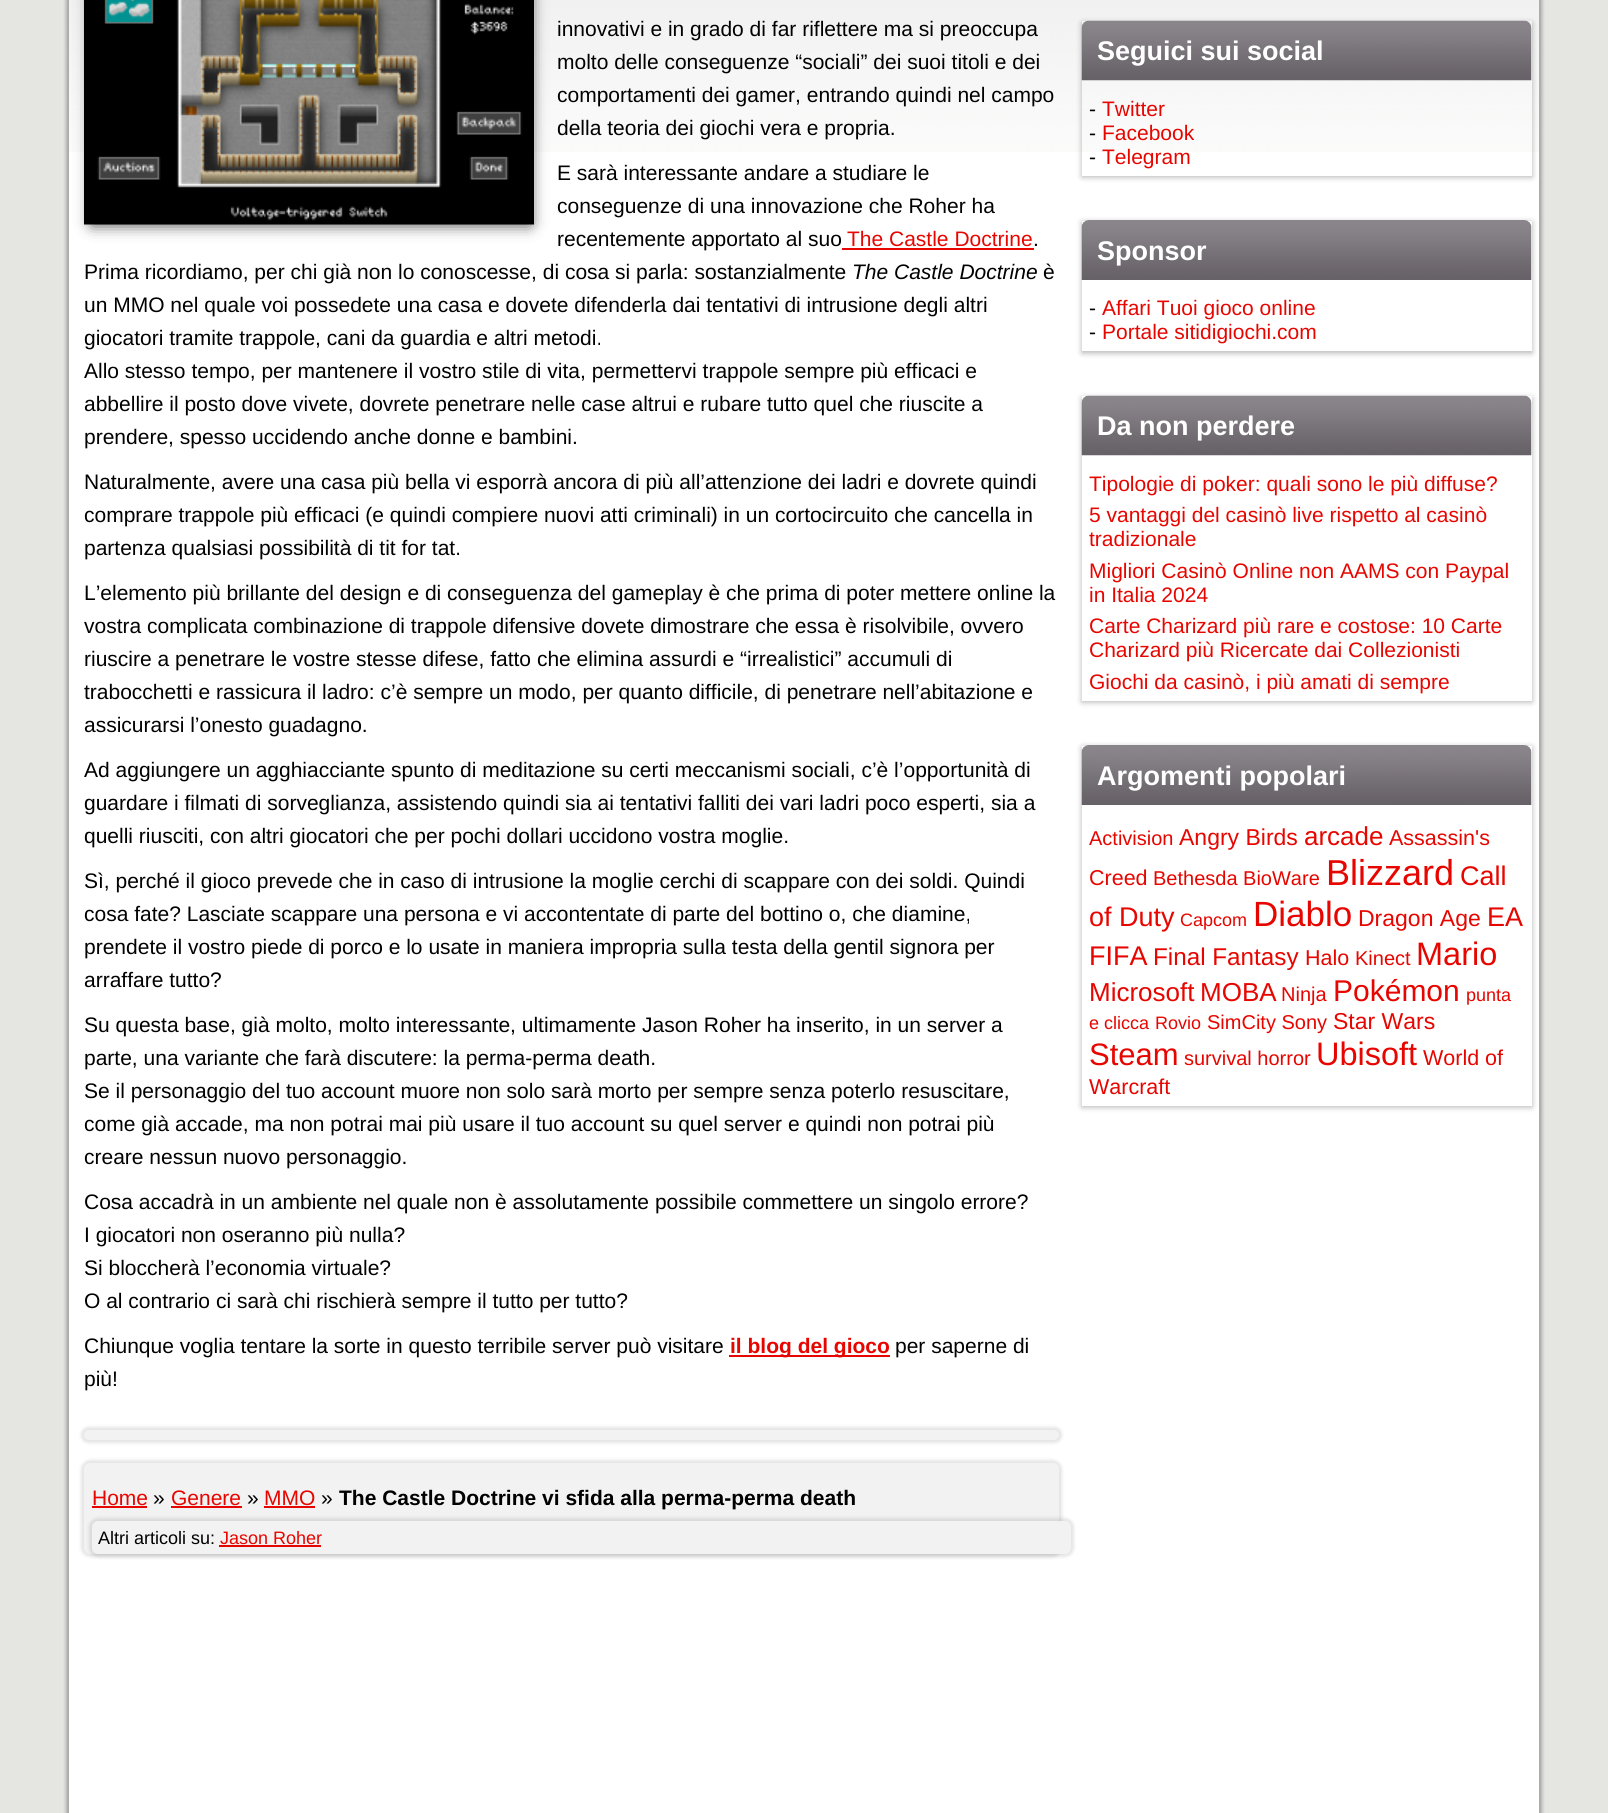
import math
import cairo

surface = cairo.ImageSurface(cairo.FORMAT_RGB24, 1608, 1813)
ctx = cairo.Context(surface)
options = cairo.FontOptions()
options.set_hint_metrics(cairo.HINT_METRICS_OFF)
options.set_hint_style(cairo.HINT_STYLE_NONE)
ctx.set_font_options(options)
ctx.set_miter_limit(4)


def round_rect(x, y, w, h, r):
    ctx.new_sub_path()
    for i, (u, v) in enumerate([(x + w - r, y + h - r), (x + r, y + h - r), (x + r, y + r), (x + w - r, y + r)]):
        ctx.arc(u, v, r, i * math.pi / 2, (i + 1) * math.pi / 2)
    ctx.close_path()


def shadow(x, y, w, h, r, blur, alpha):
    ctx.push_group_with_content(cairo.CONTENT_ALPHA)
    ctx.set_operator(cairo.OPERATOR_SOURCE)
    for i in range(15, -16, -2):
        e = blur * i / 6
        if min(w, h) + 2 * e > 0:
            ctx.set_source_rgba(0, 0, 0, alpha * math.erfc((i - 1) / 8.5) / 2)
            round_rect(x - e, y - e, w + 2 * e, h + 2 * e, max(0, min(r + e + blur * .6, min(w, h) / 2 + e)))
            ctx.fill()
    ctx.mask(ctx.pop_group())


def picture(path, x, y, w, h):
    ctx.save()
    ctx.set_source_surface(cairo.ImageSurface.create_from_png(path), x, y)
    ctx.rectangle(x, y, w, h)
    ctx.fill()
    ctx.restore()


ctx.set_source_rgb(0.898, 0.898, 0.886)
ctx.paint()
picture("img1.png", 63, 0, 1482, 1813)
ctx.set_source_rgb(1, 1, 1)
ctx.rectangle(69, 152, 1470, 1661)
ctx.fill()
picture("img2.png", 69, 0, 1470, 152)
ctx.set_source_rgb(0, 0, 0)
shadow(92, -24, 438, 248, 0, 8, 0.8)
picture("img3.png", 84, 0, 450, 225)
ctx.select_font_face("Liberation Sans")
ctx.set_font_size(21)
ctx.set_source_rgb(0, 0, 0)
ctx.move_to(557, 36)
ctx.show_text("innovativi e in grado di far riflettere ma si preoccupa")
ctx.move_to(557, 69)
ctx.show_text("molto delle conseguenze “sociali” dei suoi titoli e dei")
ctx.move_to(557, 102)
ctx.show_text("comportamenti dei gamer, entrando quindi nel campo")
ctx.move_to(557, 135)
ctx.show_text("della teoria dei giochi vera e propria.")
ctx.move_to(557, 180)
ctx.show_text("E sarà interessante andare a studiare le")
ctx.move_to(557, 213)
ctx.show_text("conseguenze di una innovazione che Roher ha")
ctx.move_to(557, 246)
ctx.show_text("recentemente apportato al suo")
ctx.set_source_rgb(0.906, 0.02, 0)
ctx.move_to(847, 246)
ctx.show_text("The Castle Doctrine")
ctx.rectangle(842, 248, 192, 2)
ctx.fill()
ctx.set_source_rgb(0, 0, 0)
ctx.move_to(1033, 246)
ctx.show_text(".")
ctx.move_to(84, 279)
ctx.show_text("Prima ricordiamo, per chi già non lo conoscesse, di cosa si parla: sostanzialmente")
ctx.select_font_face("Liberation Sans", cairo.FONT_SLANT_ITALIC)
ctx.move_to(852, 279)
ctx.show_text("The Castle Doctrine")
ctx.select_font_face("Liberation Sans")
ctx.move_to(1043, 279)
ctx.show_text("è")
ctx.move_to(84, 312)
ctx.show_text("un MMO nel quale voi possedete una casa e dovete difenderla dai tentativi di intrusione degli altri")
ctx.move_to(84, 345)
ctx.show_text("giocatori tramite trappole, cani da guardia e altri metodi.")
ctx.move_to(84, 378)
ctx.show_text("Allo stesso tempo, per mantenere il vostro stile di vita, permettervi trappole sempre più efficaci e")
ctx.move_to(84, 411)
ctx.show_text("abbellire il posto dove vivete, dovrete penetrare nelle case altrui e rubare tutto quel che riuscite a")
ctx.move_to(84, 444)
ctx.show_text("prendere, spesso uccidendo anche donne e bambini.")
ctx.move_to(84, 489)
ctx.show_text("Naturalmente, avere una casa più bella vi esporrà ancora di più all’attenzione dei ladri e dovrete quindi")
ctx.move_to(84, 522)
ctx.show_text("comprare trappole più efficaci (e quindi compiere nuovi atti criminali) in un cortocircuito che cancella in")
ctx.move_to(84, 555)
ctx.show_text("partenza qualsiasi possibilità di tit for tat.")
ctx.move_to(84, 600)
ctx.show_text("L’elemento più brillante del design e di conseguenza del gameplay è che prima di poter mettere online la")
ctx.move_to(84, 633)
ctx.show_text("vostra complicata combinazione di trappole difensive dovete dimostrare che essa è risolvibile, ovvero")
ctx.move_to(84, 666)
ctx.show_text("riuscire a penetrare le vostre stesse difese, fatto che elimina assurdi e “irrealistici” accumuli di")
ctx.move_to(84, 699)
ctx.show_text("trabocchetti e rassicura il ladro: c’è sempre un modo, per quanto difficile, di penetrare nell’abitazione e")
ctx.move_to(84, 732)
ctx.show_text("assicurarsi l’onesto guadagno.")
ctx.move_to(84, 777)
ctx.show_text("Ad aggiungere un agghiacciante spunto di meditazione su certi meccanismi sociali, c’è l’opportunità di")
ctx.move_to(84, 810)
ctx.show_text("guardare i filmati di sorveglianza, assistendo quindi sia ai tentativi falliti dei vari ladri poco esperti, sia a")
ctx.move_to(84, 843)
ctx.show_text("quelli riusciti, con altri giocatori che per pochi dollari uccidono vostra moglie.")
ctx.move_to(84, 888)
ctx.show_text("Sì, perché il gioco prevede che in caso di intrusione la moglie cerchi di scappare con dei soldi. Quindi")
ctx.move_to(84, 921)
ctx.show_text("cosa fate? Lasciate scappare una persona e vi accontentate di parte del bottino o, che diamine,")
ctx.move_to(84, 954)
ctx.show_text("prendete il vostro piede di porco e lo usate in maniera impropria sulla testa della gentil signora per")
ctx.move_to(84, 987)
ctx.show_text("arraffare tutto?")
ctx.move_to(84, 1032)
ctx.show_text("Su questa base, già molto, molto interessante, ultimamente Jason Roher ha inserito, in un server a")
ctx.move_to(84, 1065)
ctx.show_text("parte, una variante che farà discutere: la perma-perma death.")
ctx.move_to(84, 1098)
ctx.show_text("Se il personaggio del tuo account muore non solo sarà morto per sempre senza poterlo resuscitare,")
ctx.move_to(84, 1131)
ctx.show_text("come già accade, ma non potrai mai più usare il tuo account su quel server e quindi non potrai più")
ctx.move_to(84, 1164)
ctx.show_text("creare nessun nuovo personaggio.")
ctx.move_to(84, 1209)
ctx.show_text("Cosa accadrà in un ambiente nel quale non è assolutamente possibile commettere un singolo errore?")
ctx.move_to(84, 1242)
ctx.show_text("I giocatori non oseranno più nulla?")
ctx.move_to(84, 1275)
ctx.show_text("Si bloccherà l’economia virtuale?")
ctx.move_to(84, 1308)
ctx.show_text("O al contrario ci sarà chi rischierà sempre il tutto per tutto?")
ctx.move_to(84, 1353)
ctx.show_text("Chiunque voglia tentare la sorte in questo terribile server può visitare")
ctx.set_source_rgb(0.906, 0.02, 0)
ctx.rectangle(729, 1355, 161, 2)
ctx.fill()
ctx.select_font_face("Liberation Sans", cairo.FONT_SLANT_NORMAL, cairo.FONT_WEIGHT_BOLD)
ctx.move_to(730, 1353)
ctx.show_text("il blog del gioco")
ctx.select_font_face("Liberation Sans")
ctx.set_source_rgb(0, 0, 0)
ctx.move_to(895, 1353)
ctx.show_text("per saperne di")
ctx.move_to(84, 1386)
ctx.show_text("più!")
ctx.set_source_rgb(0, 0, 0)
shadow(81, 1427, 981, 16, 8, 1.5, 0.1)
ctx.set_source_rgb(0.949, 0.949, 0.949)
round_rect(84, 1430, 975, 10, 5)
ctx.fill()
ctx.set_source_rgb(0, 0, 0)
shadow(81, 1460, 981, 97, 9, 1.5, 0.1)
ctx.set_source_rgb(0.949, 0.949, 0.949)
round_rect(84, 1463, 975, 91, 6)
ctx.fill()
ctx.set_source_rgb(0.906, 0.02, 0)
ctx.move_to(92, 1505)
ctx.show_text("Home")
ctx.rectangle(92, 1506, 55, 2)
ctx.fill()
ctx.set_source_rgb(0, 0, 0)
ctx.move_to(153, 1505)
ctx.show_text("»")
ctx.set_source_rgb(0.906, 0.02, 0)
ctx.move_to(171, 1505)
ctx.show_text("Genere")
ctx.rectangle(171, 1506, 71, 2)
ctx.fill()
ctx.set_source_rgb(0, 0, 0)
ctx.move_to(247, 1505)
ctx.show_text("»")
ctx.set_source_rgb(0.906, 0.02, 0)
ctx.move_to(264, 1505)
ctx.show_text("MMO")
ctx.rectangle(264, 1506, 51, 2)
ctx.fill()
ctx.set_source_rgb(0, 0, 0)
ctx.move_to(321, 1505)
ctx.show_text("»")
ctx.select_font_face("Liberation Sans", cairo.FONT_SLANT_NORMAL, cairo.FONT_WEIGHT_BOLD)
ctx.move_to(339, 1505)
ctx.show_text("The Castle Doctrine vi sfida alla perma-perma death")
ctx.set_source_rgb(0, 0, 0)
shadow(89, 1518, 985, 39, 9, 1.5, 0.1)
ctx.set_source_rgb(0.949, 0.949, 0.949)
round_rect(92, 1521, 979, 33, 6)
ctx.fill()
ctx.select_font_face("Liberation Sans")
ctx.set_font_size(18)
ctx.set_source_rgb(0, 0, 0)
ctx.move_to(98, 1544)
ctx.show_text("Altri articoli su:")
ctx.set_source_rgb(0.906, 0.02, 0)
ctx.move_to(220, 1544)
ctx.show_text("Jason Roher")
ctx.rectangle(219, 1545, 102, 2)
ctx.fill()
ctx.save()
ctx.set_fill_rule(cairo.FILL_RULE_EVEN_ODD)
ctx.new_path()
ctx.move_to(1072, 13)
ctx.line_to(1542, 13)
ctx.line_to(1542, 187)
ctx.line_to(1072, 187)
ctx.close_path()
ctx.move_to(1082, 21)
ctx.line_to(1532, 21)
ctx.line_to(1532, 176)
ctx.line_to(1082, 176)
ctx.close_path()
ctx.clip()
ctx.set_source_rgb(0, 0, 0)
shadow(1082, 23, 450, 154, 0, 3, 0.3)
ctx.restore()
picture("img4.png", 1081, 20, 451, 61)
ctx.select_font_face("Liberation Sans", cairo.FONT_SLANT_NORMAL, cairo.FONT_WEIGHT_BOLD)
ctx.set_font_size(27)
ctx.set_source_rgb(1, 1, 1)
ctx.move_to(1097, 60)
ctx.show_text("Seguici sui social")
ctx.select_font_face("Liberation Sans")
ctx.set_font_size(21)
ctx.set_source_rgb(0, 0, 0)
ctx.move_to(1089, 116)
ctx.show_text("-")
ctx.set_source_rgb(0.906, 0.02, 0)
ctx.move_to(1102, 116)
ctx.show_text("Twitter")
ctx.set_source_rgb(0, 0, 0)
ctx.move_to(1089, 140)
ctx.show_text("-")
ctx.set_source_rgb(0.906, 0.02, 0)
ctx.move_to(1102, 140)
ctx.show_text("Facebook")
ctx.set_source_rgb(0, 0, 0)
ctx.move_to(1089, 164)
ctx.show_text("-")
ctx.set_source_rgb(0.906, 0.02, 0)
ctx.move_to(1102, 164)
ctx.show_text("Telegram")
ctx.save()
ctx.set_fill_rule(cairo.FILL_RULE_EVEN_ODD)
ctx.new_path()
ctx.move_to(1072, 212)
ctx.line_to(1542, 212)
ctx.line_to(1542, 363)
ctx.line_to(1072, 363)
ctx.close_path()
ctx.move_to(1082, 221)
ctx.line_to(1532, 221)
ctx.line_to(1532, 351)
ctx.line_to(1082, 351)
ctx.close_path()
ctx.clip()
ctx.set_source_rgb(0, 0, 0)
shadow(1082, 222, 450, 131, 0, 3, 0.3)
ctx.restore()
picture("img5.png", 1081, 220, 451, 60)
ctx.select_font_face("Liberation Sans", cairo.FONT_SLANT_NORMAL, cairo.FONT_WEIGHT_BOLD)
ctx.set_font_size(27)
ctx.set_source_rgb(1, 1, 1)
ctx.move_to(1097, 260)
ctx.show_text("Sponsor")
ctx.select_font_face("Liberation Sans")
ctx.set_font_size(21)
ctx.set_source_rgb(0, 0, 0)
ctx.move_to(1089, 315)
ctx.show_text("-")
ctx.set_source_rgb(0.906, 0.02, 0)
ctx.move_to(1102, 315)
ctx.show_text("Affari Tuoi gioco online")
ctx.set_source_rgb(0, 0, 0)
ctx.move_to(1089, 339)
ctx.show_text("-")
ctx.set_source_rgb(0.906, 0.02, 0)
ctx.move_to(1102, 339)
ctx.show_text("Portale sitidigiochi.com")
ctx.save()
ctx.set_fill_rule(cairo.FILL_RULE_EVEN_ODD)
ctx.new_path()
ctx.move_to(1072, 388)
ctx.line_to(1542, 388)
ctx.line_to(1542, 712)
ctx.line_to(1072, 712)
ctx.close_path()
ctx.move_to(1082, 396)
ctx.line_to(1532, 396)
ctx.line_to(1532, 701)
ctx.line_to(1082, 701)
ctx.close_path()
ctx.clip()
ctx.set_source_rgb(0, 0, 0)
shadow(1082, 398, 450, 304, 0, 3, 0.3)
ctx.restore()
picture("img6.png", 1081, 395, 451, 61)
ctx.select_font_face("Liberation Sans", cairo.FONT_SLANT_NORMAL, cairo.FONT_WEIGHT_BOLD)
ctx.set_font_size(27)
ctx.set_source_rgb(1, 1, 1)
ctx.move_to(1097, 435)
ctx.show_text("Da non perdere")
ctx.select_font_face("Liberation Sans")
ctx.set_font_size(21)
ctx.set_source_rgb(0.906, 0.02, 0)
ctx.move_to(1089, 491)
ctx.show_text("Tipologie di poker: quali sono le più diffuse?")
ctx.move_to(1089, 522)
ctx.show_text("5 vantaggi del casinò live rispetto al casinò")
ctx.move_to(1089, 546)
ctx.show_text("tradizionale")
ctx.move_to(1089, 578)
ctx.show_text("Migliori Casinò Online non AAMS con Paypal")
ctx.move_to(1089, 602)
ctx.show_text("in Italia 2024")
ctx.move_to(1089, 633)
ctx.show_text("Carte Charizard più rare e costose: 10 Carte")
ctx.move_to(1089, 657)
ctx.show_text("Charizard più Ricercate dai Collezionisti")
ctx.move_to(1089, 689)
ctx.show_text("Giochi da casinò, i più amati di sempre")
ctx.save()
ctx.set_fill_rule(cairo.FILL_RULE_EVEN_ODD)
ctx.new_path()
ctx.move_to(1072, 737)
ctx.line_to(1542, 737)
ctx.line_to(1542, 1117)
ctx.line_to(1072, 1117)
ctx.close_path()
ctx.move_to(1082, 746)
ctx.line_to(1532, 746)
ctx.line_to(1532, 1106)
ctx.line_to(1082, 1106)
ctx.close_path()
ctx.clip()
ctx.set_source_rgb(0, 0, 0)
shadow(1082, 747, 450, 360, 0, 3, 0.3)
ctx.restore()
picture("img7.png", 1081, 745, 451, 60)
ctx.select_font_face("Liberation Sans", cairo.FONT_SLANT_NORMAL, cairo.FONT_WEIGHT_BOLD)
ctx.set_font_size(27)
ctx.set_source_rgb(1, 1, 1)
ctx.move_to(1097, 785)
ctx.show_text("Argomenti popolari")
ctx.select_font_face("Liberation Sans")
ctx.set_font_size(20)
ctx.set_source_rgb(0.906, 0.02, 0)
ctx.move_to(1089, 845)
ctx.show_text("Activision")
ctx.set_font_size(23)
ctx.move_to(1179, 845)
ctx.show_text("Angry Birds")
ctx.set_font_size(26)
ctx.move_to(1304, 845)
ctx.show_text("arcade")
ctx.set_font_size(21.5)
ctx.move_to(1389, 845)
ctx.show_text("Assassin's")
ctx.move_to(1089, 885)
ctx.show_text("Creed")
ctx.set_font_size(20)
ctx.move_to(1153, 885)
ctx.show_text("Bethesda BioWare")
ctx.set_font_size(36)
ctx.move_to(1326, 885)
ctx.show_text("Blizzard")
ctx.set_font_size(27)
ctx.move_to(1460, 885)
ctx.show_text("Call")
ctx.move_to(1089, 926)
ctx.show_text("of Duty")
ctx.set_font_size(18)
ctx.move_to(1180, 926)
ctx.show_text("Capcom")
ctx.set_font_size(35)
ctx.move_to(1253, 926)
ctx.show_text("Diablo")
ctx.set_font_size(23)
ctx.move_to(1358, 926)
ctx.show_text("Dragon Age")
ctx.set_font_size(27)
ctx.move_to(1487, 926)
ctx.show_text("EA")
ctx.move_to(1089, 965)
ctx.show_text("FIFA")
ctx.set_font_size(24.25)
ctx.move_to(1153, 965)
ctx.show_text("Final Fantasy")
ctx.set_font_size(21.5)
ctx.move_to(1305, 965)
ctx.show_text("Halo")
ctx.set_font_size(20)
ctx.move_to(1355, 965)
ctx.show_text("Kinect")
ctx.set_font_size(32.5)
ctx.move_to(1416, 965)
ctx.show_text("Mario")
ctx.set_font_size(26)
ctx.move_to(1089, 1001)
ctx.show_text("Microsoft")
ctx.move_to(1200, 1001)
ctx.show_text("MOBA")
ctx.set_font_size(20)
ctx.move_to(1281, 1001)
ctx.show_text("Ninja")
ctx.set_font_size(30)
ctx.move_to(1333, 1001)
ctx.show_text("Pokémon")
ctx.set_font_size(18)
ctx.move_to(1466, 1001)
ctx.show_text("punta")
ctx.move_to(1089, 1029)
ctx.show_text("e clicca")
ctx.move_to(1155, 1029)
ctx.show_text("Rovio")
ctx.set_font_size(20)
ctx.move_to(1207, 1029)
ctx.show_text("SimCity Sony")
ctx.set_font_size(23)
ctx.move_to(1333, 1029)
ctx.show_text("Star Wars")
ctx.set_font_size(31)
ctx.move_to(1089, 1065)
ctx.show_text("Steam")
ctx.set_font_size(20)
ctx.move_to(1184, 1065)
ctx.show_text("survival horror")
ctx.set_font_size(32.5)
ctx.move_to(1316, 1065)
ctx.show_text("Ubisoft")
ctx.set_font_size(21.5)
ctx.move_to(1423, 1065)
ctx.show_text("World of")
ctx.move_to(1089, 1094)
ctx.show_text("Warcraft")
surface.write_to_png("page.png")
